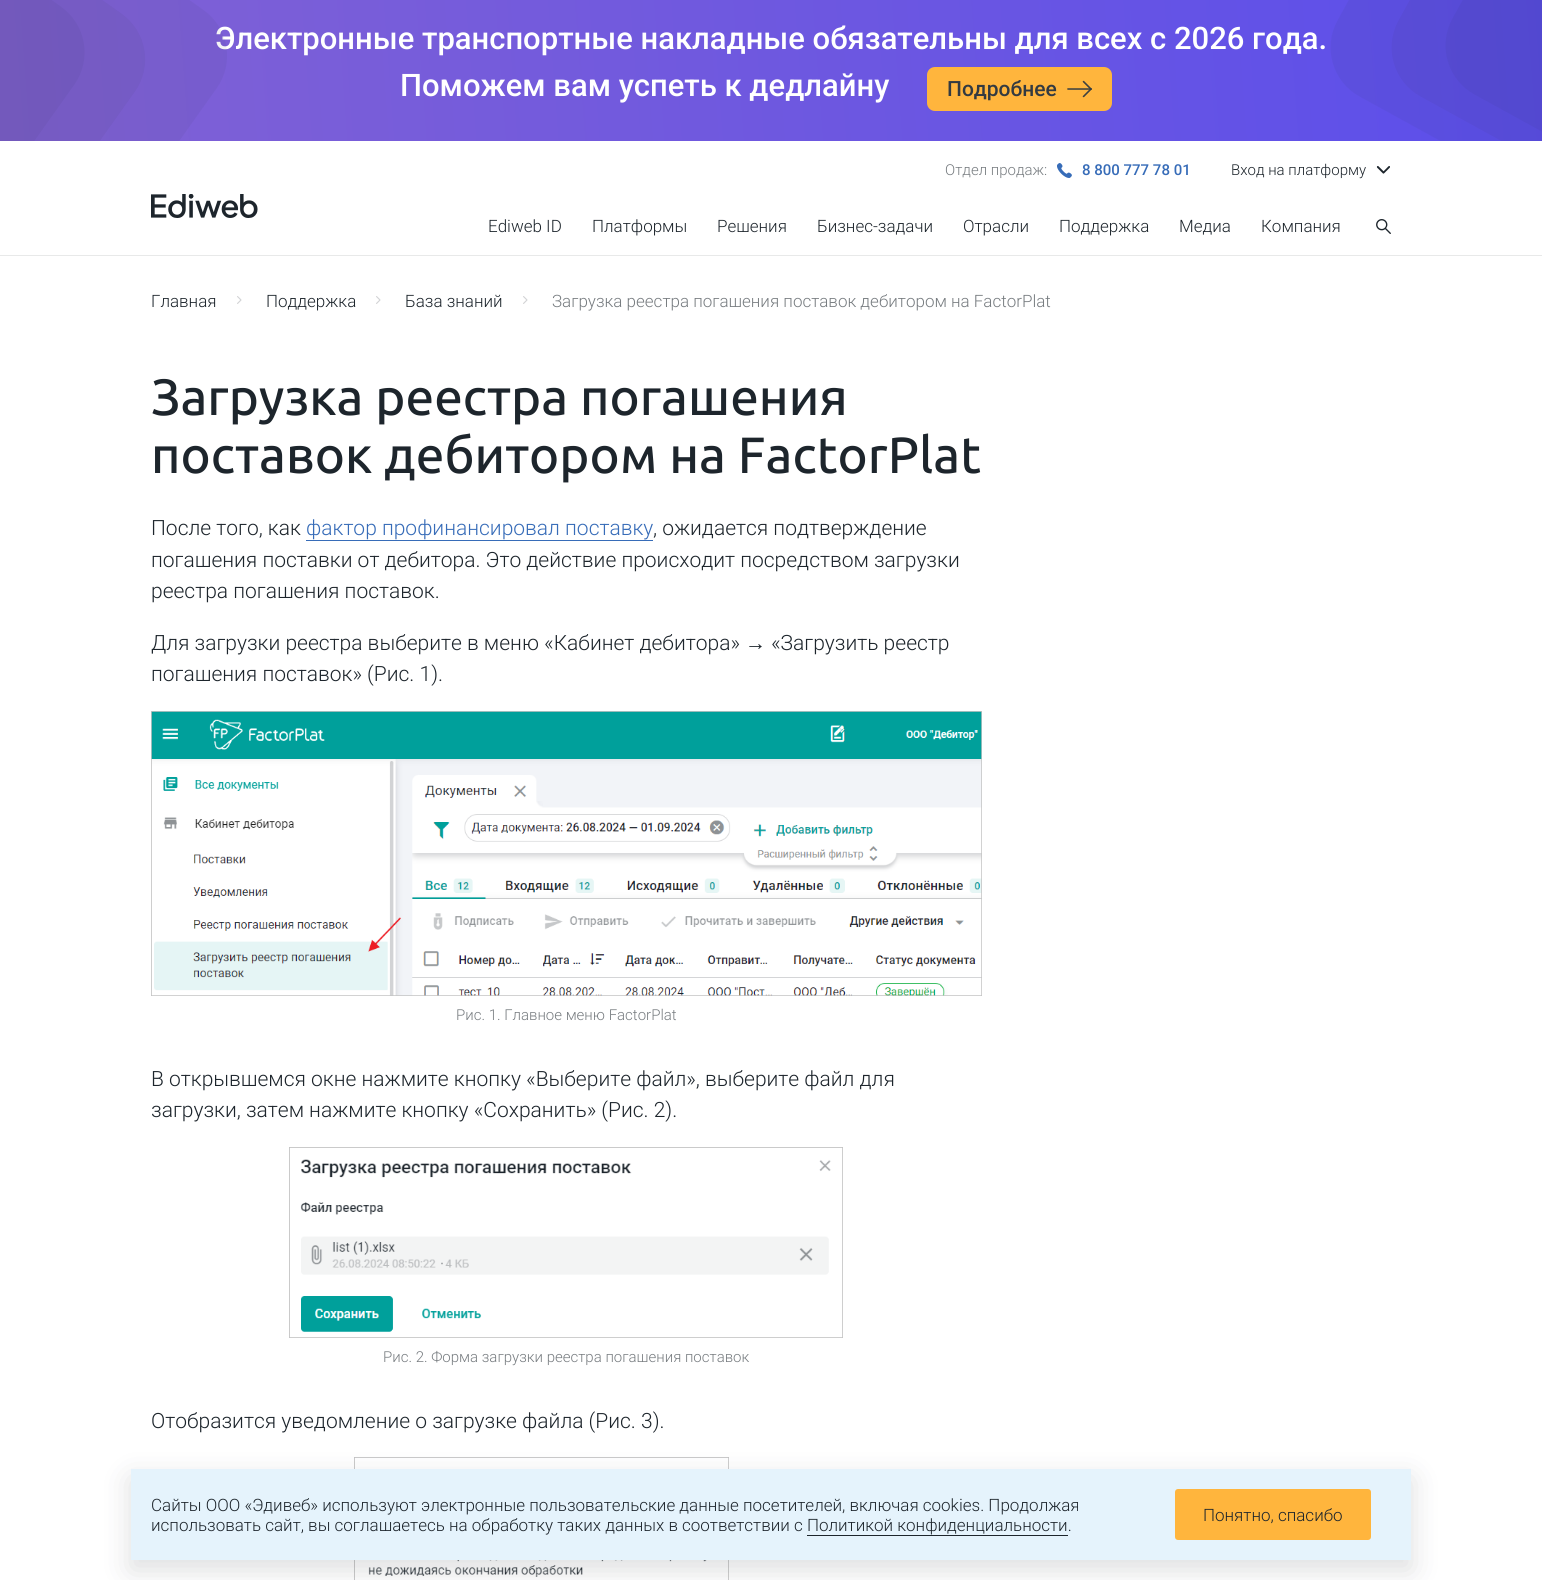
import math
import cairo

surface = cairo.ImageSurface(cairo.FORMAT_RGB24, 1542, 1580)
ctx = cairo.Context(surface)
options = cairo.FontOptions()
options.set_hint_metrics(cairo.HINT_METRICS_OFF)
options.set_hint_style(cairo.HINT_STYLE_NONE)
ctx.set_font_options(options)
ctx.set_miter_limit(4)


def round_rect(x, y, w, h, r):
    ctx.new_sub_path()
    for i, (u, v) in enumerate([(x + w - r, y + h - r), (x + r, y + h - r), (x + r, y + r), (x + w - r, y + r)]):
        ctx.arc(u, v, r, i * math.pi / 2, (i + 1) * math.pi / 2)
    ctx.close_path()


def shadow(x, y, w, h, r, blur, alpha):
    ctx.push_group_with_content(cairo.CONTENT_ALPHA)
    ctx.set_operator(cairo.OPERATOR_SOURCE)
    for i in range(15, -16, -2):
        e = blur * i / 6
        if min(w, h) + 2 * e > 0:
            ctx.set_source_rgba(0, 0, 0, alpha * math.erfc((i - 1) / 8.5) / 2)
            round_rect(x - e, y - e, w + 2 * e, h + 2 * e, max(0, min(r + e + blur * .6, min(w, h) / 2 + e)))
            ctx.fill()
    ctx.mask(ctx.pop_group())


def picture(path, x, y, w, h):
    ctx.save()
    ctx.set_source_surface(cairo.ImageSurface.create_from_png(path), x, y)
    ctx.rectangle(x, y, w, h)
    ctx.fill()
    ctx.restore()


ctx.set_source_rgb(1, 1, 1)
ctx.paint()
gradient = cairo.LinearGradient(-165, 141, 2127, -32)
gradient.add_color_stop_rgba(0, 0.522, 0.392, 0.82, 1)
gradient.add_color_stop_rgba(1, 0.302, 0.278, 0.957, 1)
ctx.set_source(gradient)
ctx.rectangle(0, 0, 1542, 141)
ctx.fill()
ctx.select_font_face("Roboto Medium")
ctx.set_font_size(31)
ctx.set_source_rgb(1, 1, 1)
ctx.move_to(215, 49)
ctx.show_text("Электронные транспортные накладные обязательны для всех с 2026 года.")
picture("img1.png", 0, 0, 227, 141)
ctx.move_to(400, 96)
ctx.show_text("Поможем вам успеть к дедлайну")
ctx.set_source_rgb(1, 0.71, 0.239)
round_rect(927, 67, 185, 44, 8)
ctx.fill()
ctx.set_font_size(21)
ctx.set_source_rgb(0.2, 0.227, 0.255)
ctx.move_to(947, 96)
ctx.show_text("Подробнее")
picture("img2.png", 1067, 80, 25, 18)
picture("img3.png", 1330, 0, 212, 141)
picture("img4.png", 151, 194, 107, 24)
ctx.select_font_face("Roboto Light")
ctx.set_font_size(15)
ctx.set_source_rgb(0.467, 0.486, 0.502)
ctx.move_to(945, 175)
ctx.show_text("Отдел продаж:")
picture("img5.png", 1057, 163, 15, 15)
ctx.select_font_face("Roboto Medium")
ctx.set_source_rgb(0.216, 0.424, 0.722)
ctx.move_to(1082, 175)
ctx.show_text("8 800 777 78 01")
ctx.select_font_face("Roboto Light")
ctx.set_source_rgb(0.114, 0.145, 0.173)
ctx.move_to(1231, 175)
ctx.show_text("Вход на платформу")
picture("img6.png", 1376, 166, 14, 8)
ctx.set_font_size(17)
ctx.move_to(488, 232)
ctx.show_text("Ediweb ID")
ctx.move_to(592, 232)
ctx.show_text("Платформы")
ctx.move_to(717, 232)
ctx.show_text("Решения")
ctx.move_to(817, 232)
ctx.show_text("Бизнес-задачи")
ctx.move_to(963, 232)
ctx.show_text("Отрасли")
ctx.move_to(1059, 232)
ctx.show_text("Поддержка")
ctx.move_to(1179, 232)
ctx.show_text("Медиа")
ctx.move_to(1261, 232)
ctx.show_text("Компания")
picture("img7.png", 1376, 219, 15, 15)
ctx.set_source_rgb(0.91, 0.914, 0.914)
ctx.rectangle(0, 255, 1542, 1)
ctx.fill()
ctx.set_source_rgb(0.114, 0.145, 0.173)
ctx.move_to(151, 307)
ctx.show_text("Главная")
picture("img8.png", 237, 296, 5, 8)
ctx.move_to(266, 307)
ctx.show_text("Поддержка")
picture("img8.png", 376, 296, 5, 8)
ctx.move_to(405, 307)
ctx.show_text("База знаний")
picture("img8.png", 523, 296, 5, 8)
ctx.set_source_rgb(0.467, 0.486, 0.502)
ctx.move_to(552, 307)
ctx.show_text("Загрузка реестра погашения поставок дебитором на FactorPlat")
ctx.select_font_face("Ubuntu Medium")
ctx.set_font_size(51)
ctx.set_source_rgb(0.114, 0.145, 0.173)
ctx.move_to(151, 415)
ctx.show_text("Загрузка реестра погашения")
ctx.move_to(151, 473)
ctx.show_text("поставок дебитором на FactorPlat")
ctx.select_font_face("Roboto Light")
ctx.set_font_size(21)
ctx.move_to(151, 535)
ctx.show_text("После того, как")
ctx.set_source_rgb(0.216, 0.424, 0.722)
ctx.move_to(306, 535)
ctx.show_text("фактор профинансировал поставку")
ctx.rectangle(306, 540, 347, 1)
ctx.fill()
ctx.set_source_rgb(0.114, 0.145, 0.173)
ctx.move_to(653, 535)
ctx.show_text(", ожидается подтверждение")
ctx.move_to(151, 567)
ctx.show_text("погашения поставки от дебитора. Это действие происходит посредством загрузки")
ctx.move_to(151, 598)
ctx.show_text("реестра погашения поставок.")
ctx.move_to(151, 650)
ctx.show_text("Для загрузки реестра выберите в меню «Кабинет дебитора»")
ctx.select_font_face("Liberation Sans")
ctx.move_to(745, 650)
ctx.show_text("→")
ctx.select_font_face("Roboto Light")
ctx.move_to(771, 650)
ctx.show_text("«Загрузить реестр")
ctx.move_to(151, 681)
ctx.show_text("погашения поставок» (Рис. 1).")
picture("img9.png", 151, 711, 831, 285)
ctx.set_font_size(15)
ctx.set_source_rgb(0.467, 0.486, 0.502)
ctx.move_to(456, 1020)
ctx.show_text("Рис. 1. Главное меню FactorPlat")
ctx.set_font_size(21)
ctx.set_source_rgb(0.114, 0.145, 0.173)
ctx.move_to(151, 1086)
ctx.show_text("В открывшемся окне нажмите кнопку «Выберите файл», выберите файл для")
ctx.move_to(151, 1117)
ctx.show_text("загрузки, затем нажмите кнопку «Сохранить» (Рис. 2).")
picture("img10.png", 289, 1147, 554, 191)
ctx.set_font_size(15)
ctx.set_source_rgb(0.467, 0.486, 0.502)
ctx.move_to(383, 1362)
ctx.show_text("Рис. 2. Форма загрузки реестра погашения поставок")
ctx.set_font_size(21)
ctx.set_source_rgb(0.114, 0.145, 0.173)
ctx.move_to(151, 1428)
ctx.show_text("Отобразится уведомление о загрузке файла (Рис. 3).")
picture("img11.png", 354, 1457, 375, 123)
ctx.set_source_rgb(0.114, 0.145, 0.173)
shadow(131, 1479, 1280, 91, 0, 15, 0.15)
ctx.set_source_rgb(0.898, 0.953, 0.988)
ctx.rectangle(131, 1469, 1280, 91)
ctx.fill()
ctx.set_font_size(17)
ctx.set_source_rgb(0.114, 0.145, 0.173)
ctx.move_to(151, 1511)
ctx.show_text("Сайты ООО «Эдивеб» используют электронные пользовательские данные посетителей, включая cookies. Продолжая")
ctx.move_to(151, 1531)
ctx.show_text("использовать сайт, вы соглашаетесь на обработку таких данных в соответствии с Политикой конфиденциальности.")
ctx.rectangle(807, 1535, 261, 1)
ctx.fill()
ctx.set_source_rgb(1, 0.71, 0.239)
round_rect(1175, 1489, 196, 51, 3)
ctx.fill()
ctx.set_source_rgb(0.114, 0.145, 0.173)
ctx.move_to(1203, 1521)
ctx.show_text("Понятно, спасибо")
surface.write_to_png("page.png")
